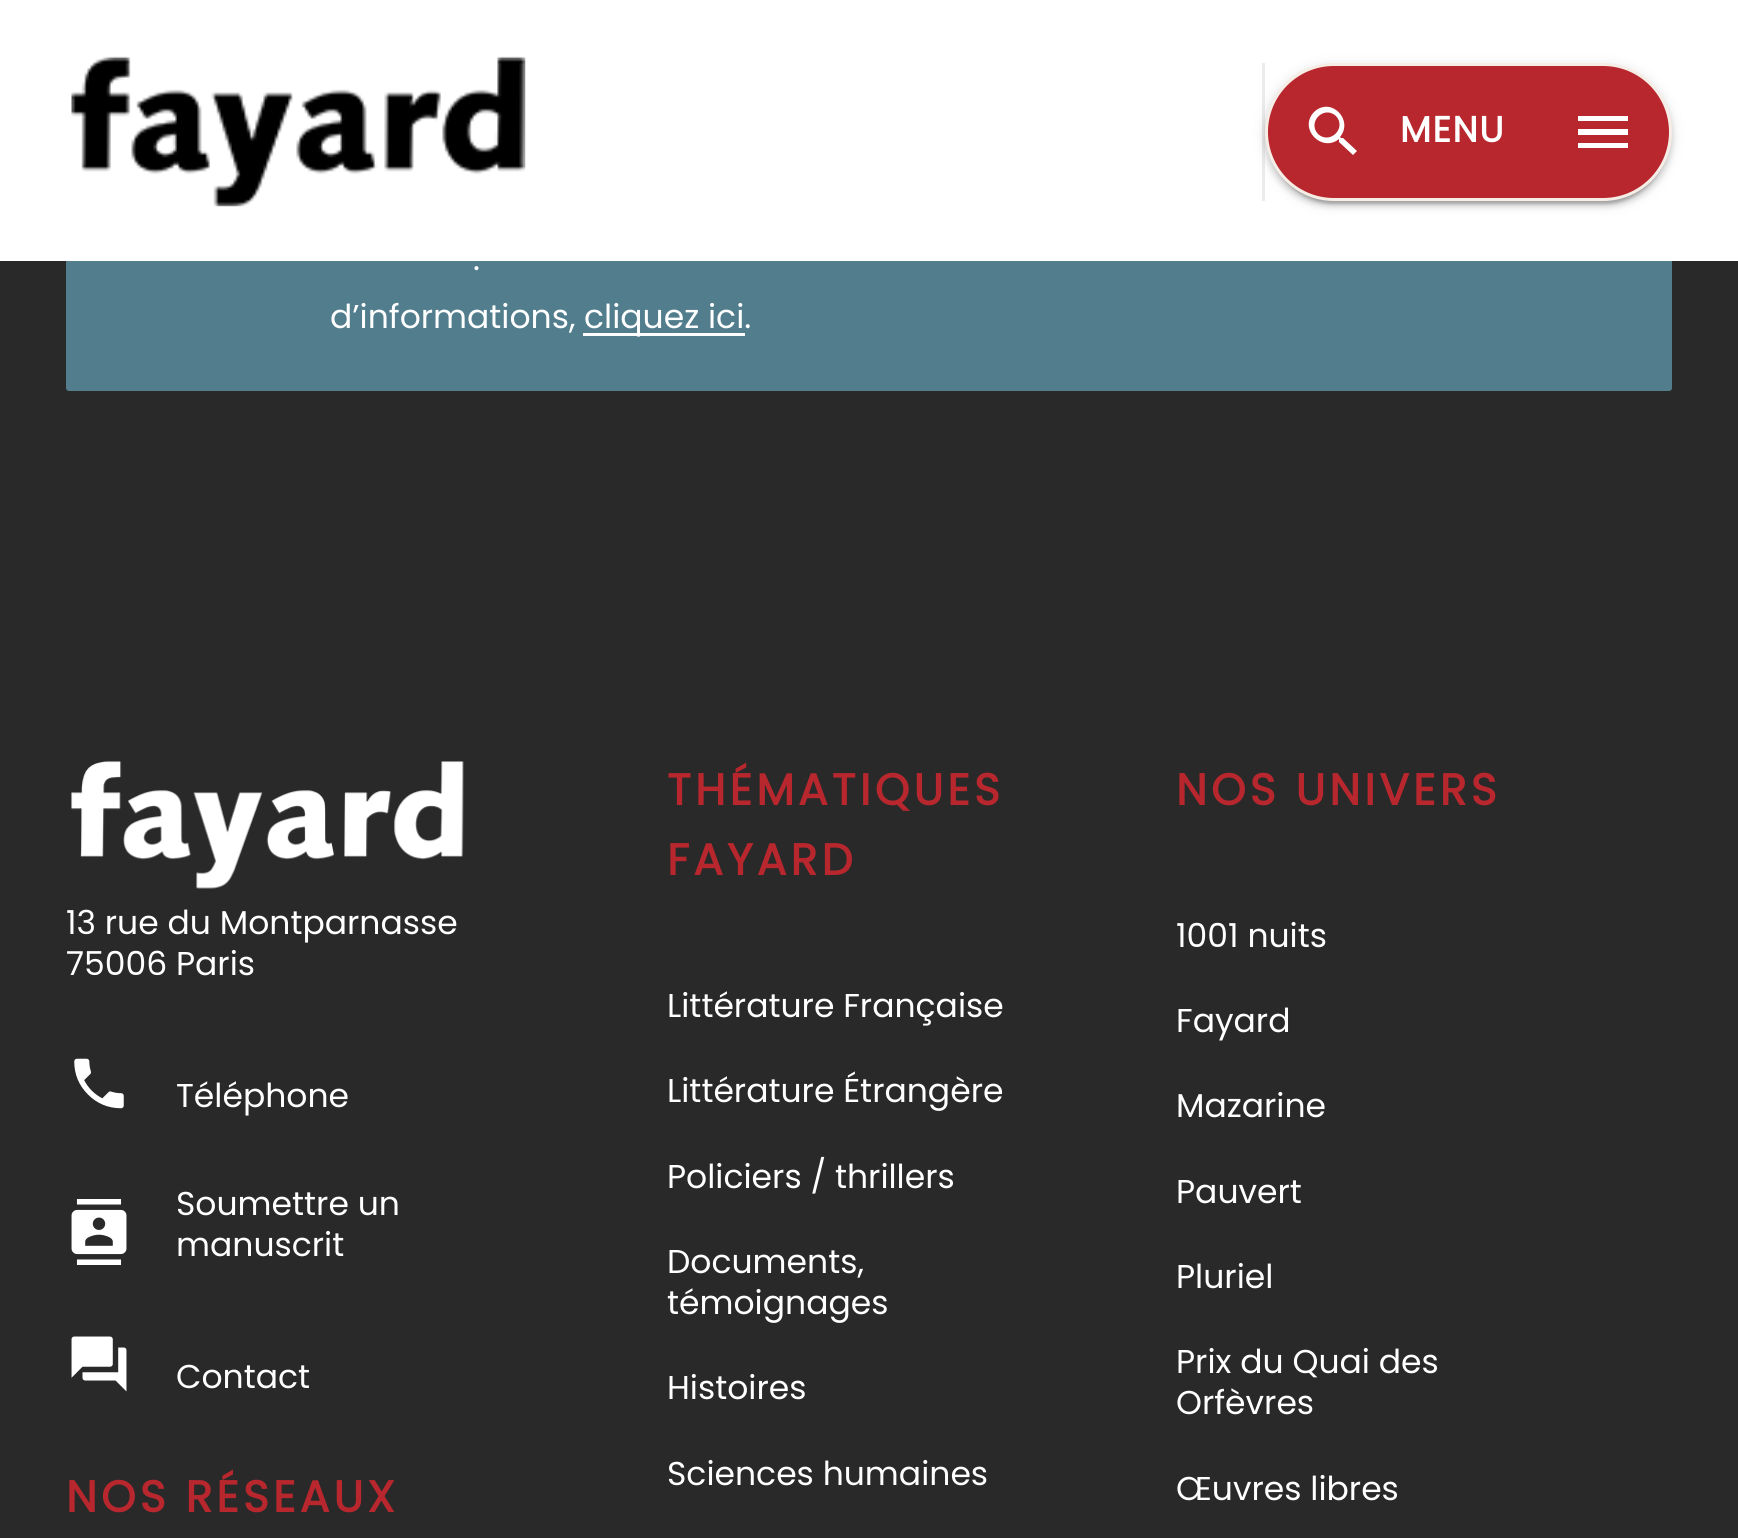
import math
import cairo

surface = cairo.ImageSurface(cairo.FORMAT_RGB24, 1738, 1538)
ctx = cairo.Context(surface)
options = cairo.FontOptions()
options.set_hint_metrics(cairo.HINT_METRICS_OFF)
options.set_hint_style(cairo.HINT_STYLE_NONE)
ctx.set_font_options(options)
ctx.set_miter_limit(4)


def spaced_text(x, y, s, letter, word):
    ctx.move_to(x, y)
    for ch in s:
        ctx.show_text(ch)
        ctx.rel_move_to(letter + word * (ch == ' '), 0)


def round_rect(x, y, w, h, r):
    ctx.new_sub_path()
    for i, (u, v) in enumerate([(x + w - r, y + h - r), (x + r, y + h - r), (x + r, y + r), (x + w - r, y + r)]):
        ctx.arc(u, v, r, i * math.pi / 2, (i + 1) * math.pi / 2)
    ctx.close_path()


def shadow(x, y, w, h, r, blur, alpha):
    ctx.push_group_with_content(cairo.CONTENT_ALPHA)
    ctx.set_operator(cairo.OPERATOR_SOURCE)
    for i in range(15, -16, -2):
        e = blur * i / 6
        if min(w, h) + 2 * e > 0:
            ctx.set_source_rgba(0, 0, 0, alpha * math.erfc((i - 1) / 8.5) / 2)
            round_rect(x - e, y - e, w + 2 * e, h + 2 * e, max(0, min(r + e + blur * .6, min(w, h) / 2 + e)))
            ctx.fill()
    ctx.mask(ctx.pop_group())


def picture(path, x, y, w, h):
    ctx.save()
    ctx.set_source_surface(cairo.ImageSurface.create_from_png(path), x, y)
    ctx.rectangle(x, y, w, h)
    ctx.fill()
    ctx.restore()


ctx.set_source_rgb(0.161, 0.161, 0.161)
ctx.paint()
ctx.set_source_rgb(0.322, 0.49, 0.553)
round_rect(66, -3, 1606, 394, 3)
ctx.fill()
ctx.set_source_rgb(1, 1, 1)
ctx.rectangle(0, 0, 1738, 261)
ctx.fill()
picture("img1.png", 71, 56, 455, 151)
ctx.set_source_rgb(0.922, 0.922, 0.922)
ctx.rectangle(1262, 63, 3, 138)
ctx.fill()
ctx.set_source_rgb(0, 0, 0)
shadow(1265, 66, 407, 138, 69, 7, 0.12)
shadow(1265, 69, 407, 137, 68.5, 3, 0.14)
shadow(1271, 77, 396, 127, 63.5, 1.5, 0.2)
ctx.set_source_rgb(0.718, 0.153, 0.176)
round_rect(1266.5, 64.5, 404, 135, 67.5)
ctx.fill_preserve()
ctx.set_source_rgb(0.961, 0.929, 0.902)
ctx.set_line_width(3)
ctx.stroke()
ctx.set_source_rgb(1, 1, 1)
ctx.new_path()
ctx.move_to(1318, 134)
ctx.curve_to(1330, 145, 1347, 128, 1336, 116)
ctx.curve_to(1324, 105, 1307, 122, 1318, 134)
ctx.close_path()
ctx.move_to(1343, 138)
ctx.line_to(1357, 151)
ctx.line_to(1353, 155)
ctx.line_to(1339, 142)
ctx.line_to(1339, 139)
ctx.curve_to(1322, 153, 1298, 129, 1314, 112)
ctx.curve_to(1331, 96, 1354, 120, 1340, 137)
ctx.line_to(1341, 138)
ctx.close_path()
ctx.fill()
ctx.select_font_face("Poppins", cairo.FONT_SLANT_NORMAL, cairo.FONT_WEIGHT_BOLD)
ctx.set_font_size(36)
spaced_text(1400, 142, "MENU", 1.5, 0)
ctx.new_path()
ctx.move_to(1578, 116)
ctx.line_to(1628, 116)
ctx.line_to(1628, 121)
ctx.line_to(1578, 121)
ctx.close_path()
ctx.move_to(1578, 135)
ctx.line_to(1578, 129)
ctx.line_to(1628, 129)
ctx.line_to(1628, 135)
ctx.close_path()
ctx.move_to(1578, 148)
ctx.line_to(1578, 143)
ctx.line_to(1628, 143)
ctx.line_to(1628, 148)
ctx.close_path()
ctx.fill()
ctx.select_font_face("Poppins")
ctx.set_font_size(33)
ctx.move_to(473, 270)
ctx.show_text(".")
ctx.move_to(330, 328)
ctx.show_text("d’informations,")
ctx.rectangle(583, 333, 162, 3)
ctx.fill()
ctx.move_to(584, 328)
ctx.show_text("cliquez ici.")
picture("img2.png", 71, 761, 393, 128)
ctx.move_to(66, 934)
ctx.show_text("13 rue du Montparnasse")
ctx.move_to(66, 975)
ctx.show_text("75006 Paris")
picture("img3.png", 74, 1058, 50, 51)
ctx.move_to(176, 1107)
ctx.show_text("Téléphone")
picture("img4.png", 71, 1199, 56, 66)
ctx.move_to(176, 1215)
ctx.show_text("Soumettre un")
ctx.move_to(176, 1256)
ctx.show_text("manuscrit")
picture("img5.png", 71, 1336, 56, 56)
ctx.move_to(176, 1388)
ctx.show_text("Contact")
ctx.select_font_face("Poppins", cairo.FONT_SLANT_NORMAL, cairo.FONT_WEIGHT_BOLD)
ctx.set_font_size(44)
ctx.set_source_rgb(0.718, 0.153, 0.176)
spaced_text(66, 1512, "NOS RÉSEAUX", 4.1, 0)
spaced_text(667, 805, "THÉMATIQUES", 4.1, 0)
spaced_text(667, 875, "FAYARD", 4.1, 0)
ctx.select_font_face("Poppins")
ctx.set_font_size(33)
ctx.set_source_rgb(1, 1, 1)
ctx.move_to(667, 1017)
ctx.show_text("Littérature Française")
ctx.move_to(667, 1102)
ctx.show_text("Littérature Étrangère")
ctx.move_to(667, 1188)
ctx.show_text("Policiers / thrillers")
ctx.move_to(667, 1273)
ctx.show_text("Documents,")
ctx.move_to(667, 1314)
ctx.show_text("témoignages")
ctx.move_to(667, 1399)
ctx.show_text("Histoires")
ctx.move_to(667, 1485)
ctx.show_text("Sciences humaines")
ctx.select_font_face("Poppins", cairo.FONT_SLANT_NORMAL, cairo.FONT_WEIGHT_BOLD)
ctx.set_font_size(44)
ctx.set_source_rgb(0.718, 0.153, 0.176)
spaced_text(1176, 805, "NOS UNIVERS", 4.1, 0)
ctx.select_font_face("Poppins")
ctx.set_font_size(33)
ctx.set_source_rgb(1, 1, 1)
ctx.move_to(1176, 947)
ctx.show_text("1001 nuits")
ctx.move_to(1176, 1032)
ctx.show_text("Fayard")
ctx.move_to(1176, 1117)
ctx.show_text("Mazarine")
ctx.move_to(1176, 1203)
ctx.show_text("Pauvert")
ctx.move_to(1176, 1288)
ctx.show_text("Pluriel")
ctx.move_to(1176, 1373)
ctx.show_text("Prix du Quai des")
ctx.move_to(1176, 1414)
ctx.show_text("Orfèvres")
ctx.move_to(1176, 1500)
ctx.show_text("Œuvres libres")
surface.write_to_png("page.png")
